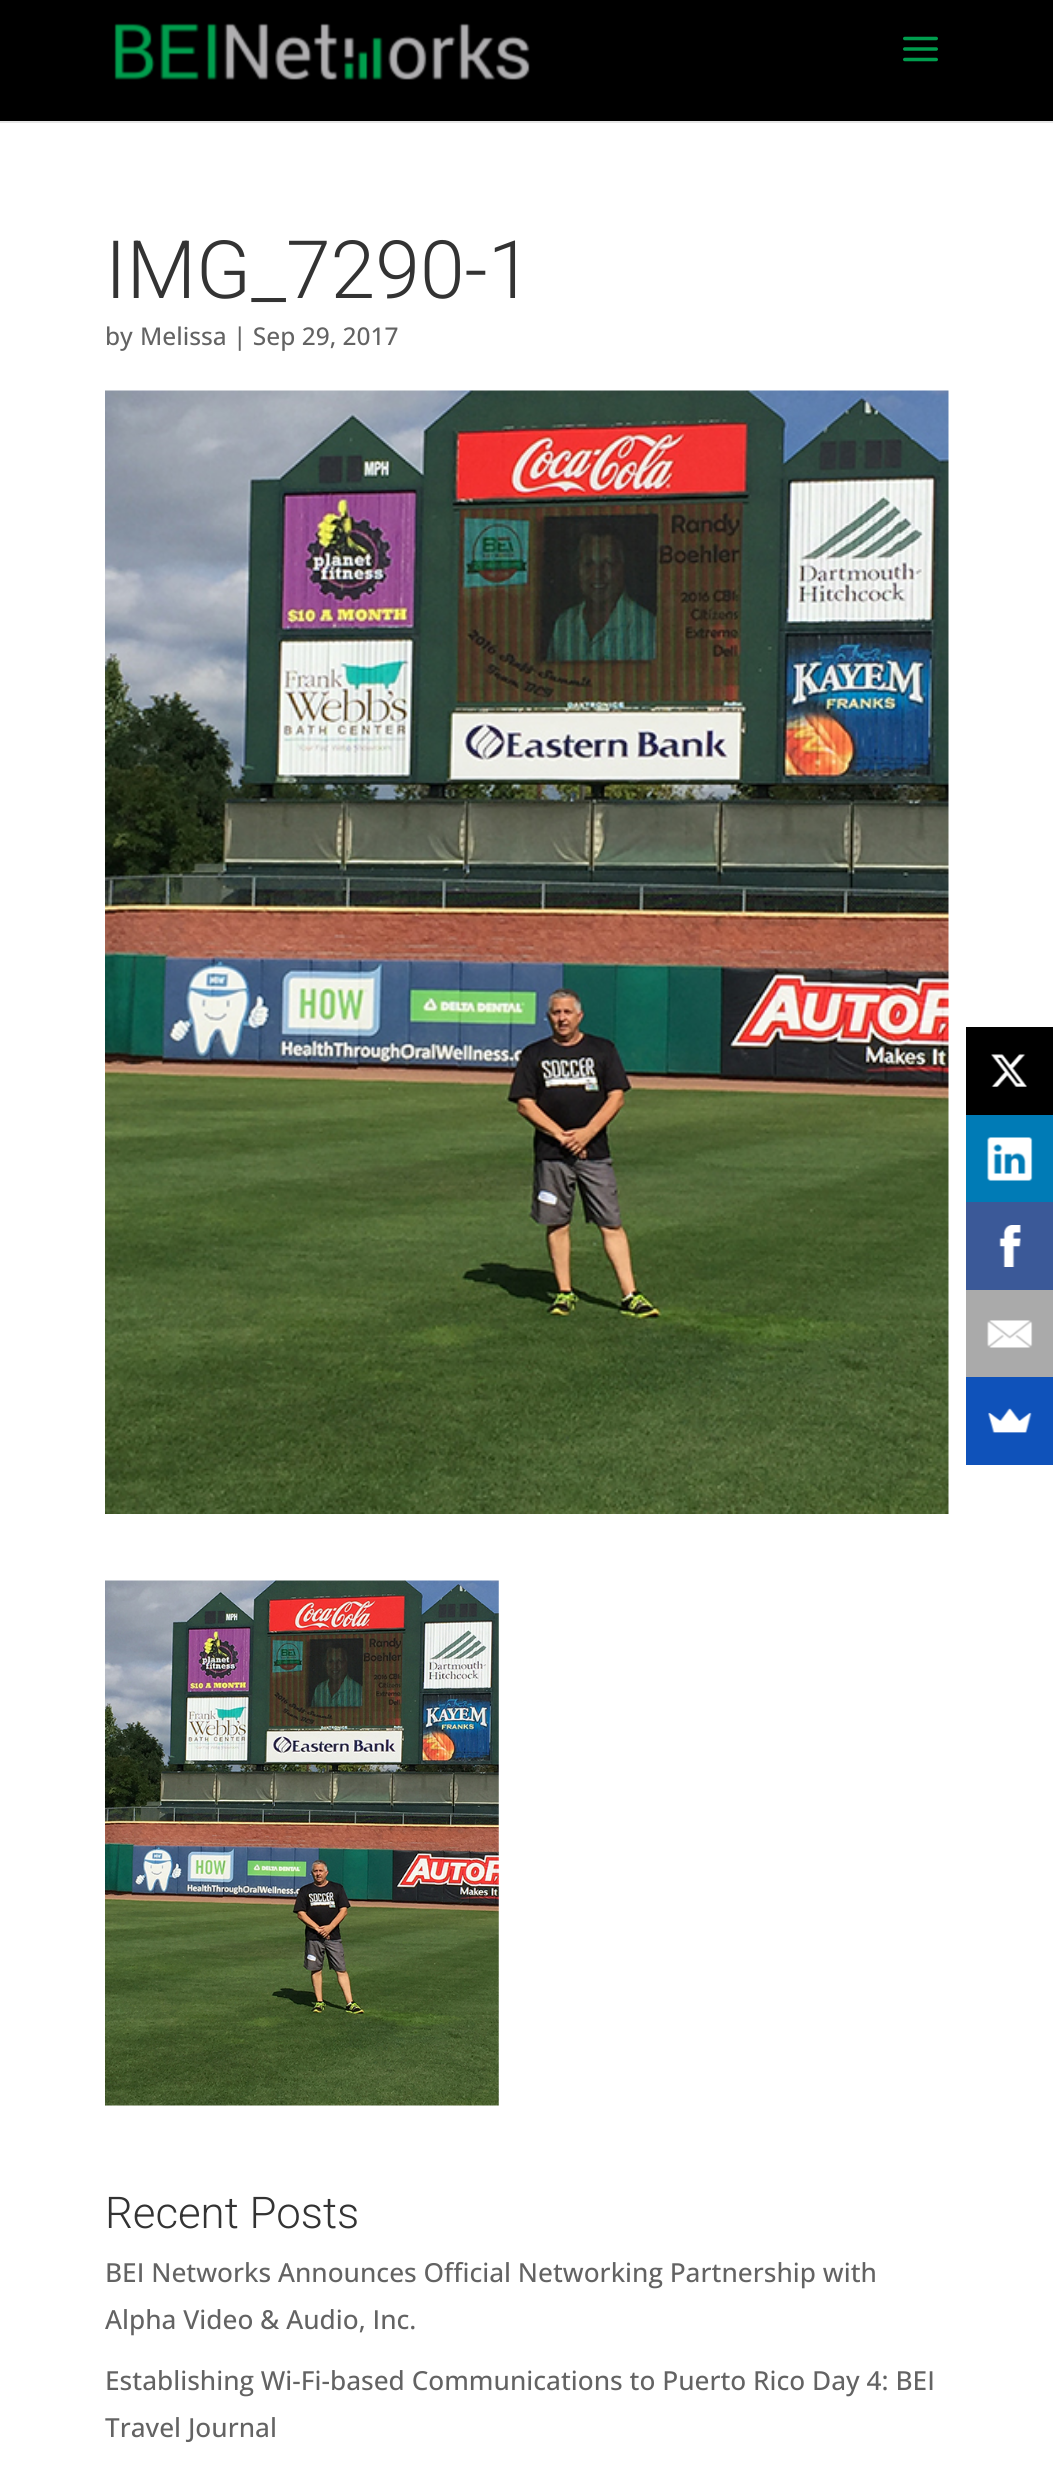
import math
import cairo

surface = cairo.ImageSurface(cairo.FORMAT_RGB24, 1053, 2490)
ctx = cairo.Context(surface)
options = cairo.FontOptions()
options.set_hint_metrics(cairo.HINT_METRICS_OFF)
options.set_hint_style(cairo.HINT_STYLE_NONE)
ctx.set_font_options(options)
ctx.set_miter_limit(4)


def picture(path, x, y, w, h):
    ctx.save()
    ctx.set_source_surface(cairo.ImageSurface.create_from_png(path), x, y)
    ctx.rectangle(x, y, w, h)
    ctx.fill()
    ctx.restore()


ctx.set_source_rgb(1, 1, 1)
ctx.paint()
ctx.set_source_rgb(0.902, 0.902, 0.902)
ctx.new_path()
ctx.move_to(0, 121)
ctx.line_to(0, 123)
ctx.line_to(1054, 123)
ctx.line_to(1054, -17)
ctx.line_to(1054, 121)
ctx.close_path()
ctx.fill()
ctx.set_source_rgb(0, 0, 0)
ctx.rectangle(0, 0, 1053, 121)
ctx.fill()
picture("img1.png", 114, 23, 416, 57)
picture("img2.png", 903, 36, 35, 26)
ctx.select_font_face("Roboto Light")
ctx.set_font_size(80.5)
ctx.set_source_rgb(0.2, 0.2, 0.2)
ctx.move_to(105, 298)
ctx.show_text("IMG_7290-1")
ctx.select_font_face("Open Sans Medium")
ctx.set_font_size(24.5)
ctx.set_source_rgb(0.388, 0.388, 0.388)
ctx.move_to(105, 345)
ctx.show_text("by")
ctx.move_to(140, 345)
ctx.show_text("Melissa")
ctx.move_to(233, 345)
ctx.show_text("| Sep 29, 2017")
picture("img3.png", 105, 390, 844, 1124)
picture("img4.png", 105, 1580, 394, 526)
ctx.select_font_face("Roboto Light")
ctx.set_font_size(43.75)
ctx.set_source_rgb(0.2, 0.2, 0.2)
ctx.move_to(105, 2228)
ctx.show_text("Recent Posts")
ctx.select_font_face("Open Sans Medium")
ctx.set_font_size(26.25)
ctx.set_source_rgb(0.388, 0.388, 0.388)
ctx.move_to(105, 2282)
ctx.show_text("BEI Networks Announces Official Networking Partnership with")
ctx.move_to(105, 2329)
ctx.show_text("Alpha Video & Audio, Inc.")
ctx.move_to(105, 2390)
ctx.show_text("Establishing Wi-Fi-based Communications to Puerto Rico Day 4: BEI")
ctx.move_to(105, 2437)
ctx.show_text("Travel Journal")
ctx.set_source_rgb(0, 0, 0)
ctx.rectangle(966, 1027, 87, 88)
ctx.fill()
picture("img5.png", 991, 1054, 36, 33)
ctx.set_source_rgb(0, 0.482, 0.714)
ctx.rectangle(966, 1115, 87, 87)
ctx.fill()
picture("img6.png", 987, 1137, 46, 44)
ctx.set_source_rgb(0.231, 0.349, 0.596)
ctx.rectangle(966, 1202, 87, 88)
ctx.fill()
picture("img7.png", 999, 1225, 22, 42)
ctx.set_source_rgb(0.667, 0.667, 0.667)
ctx.rectangle(966, 1290, 87, 87)
ctx.fill()
picture("img8.png", 987, 1320, 46, 28)
ctx.set_source_rgb(0.059, 0.322, 0.729)
ctx.rectangle(966, 1377, 87, 88)
ctx.fill()
picture("img9.png", 988, 1408, 44, 25)
surface.write_to_png("page.png")
